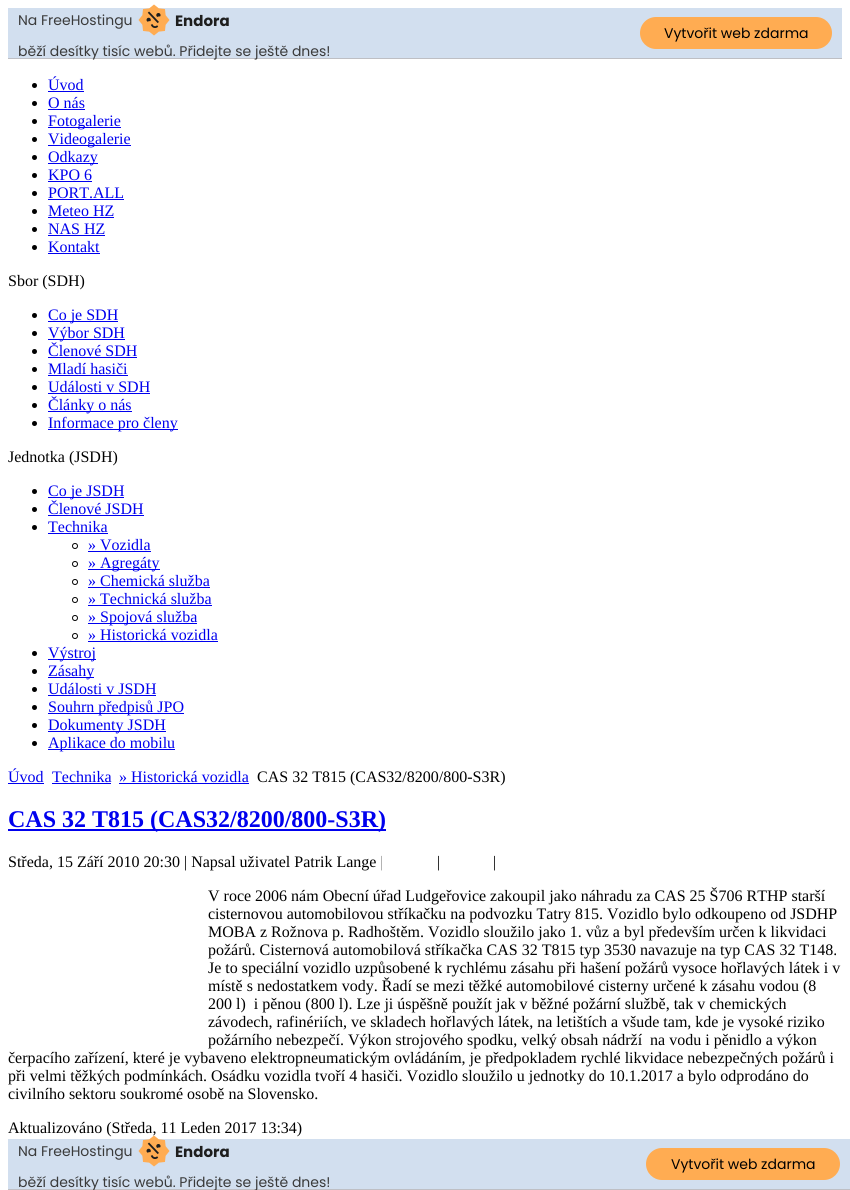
import math
import cairo

surface = cairo.ImageSurface(cairo.FORMAT_RGB24, 850, 1190)
ctx = cairo.Context(surface)
options = cairo.FontOptions()
options.set_hint_metrics(cairo.HINT_METRICS_OFF)
options.set_hint_style(cairo.HINT_STYLE_NONE)
ctx.set_font_options(options)
ctx.set_miter_limit(4)


def round_rect(x, y, w, h, r):
    ctx.new_sub_path()
    for i, (u, v) in enumerate([(x + w - r, y + h - r), (x + r, y + h - r), (x + r, y + r), (x + w - r, y + r)]):
        ctx.arc(u, v, r, i * math.pi / 2, (i + 1) * math.pi / 2)
    ctx.close_path()


def picture(path, x, y, w, h):
    ctx.save()
    ctx.set_source_surface(cairo.ImageSurface.create_from_png(path), x, y)
    ctx.rectangle(x, y, w, h)
    ctx.fill()
    ctx.restore()


ctx.set_source_rgb(1, 1, 1)
ctx.paint()
ctx.set_source_rgb(0.824, 0.875, 0.937)
ctx.rectangle(8, 8, 834, 50)
ctx.fill()
ctx.set_source_rgb(0.745, 0.749, 0.769)
ctx.rectangle(8, 58, 834, 1)
ctx.fill()
ctx.select_font_face("Poppins")
ctx.set_font_size(14)
ctx.set_source_rgb(0.227, 0.227, 0.227)
ctx.move_to(18, 25)
ctx.show_text("Na FreeHostingu")
picture("img1.png", 138, 4, 32, 32)
ctx.select_font_face("Poppins", cairo.FONT_SLANT_NORMAL, cairo.FONT_WEIGHT_BOLD)
ctx.set_font_size(15)
ctx.set_source_rgb(0.118, 0.118, 0.118)
ctx.move_to(175, 26)
ctx.show_text("Endora")
ctx.select_font_face("Poppins")
ctx.set_font_size(14)
ctx.set_source_rgb(0.227, 0.227, 0.227)
ctx.move_to(18, 56)
ctx.show_text("běží desítky tisíc webů. Přidejte se ještě dnes!")
ctx.set_source_rgb(1, 0.675, 0.322)
round_rect(640, 17, 192, 32, 16)
ctx.fill()
ctx.set_source_rgb(0, 0, 0)
ctx.move_to(664, 38)
ctx.show_text("Vytvořit web zdarma")
ctx.new_path()
ctx.arc(34.5, 85.5, 2.5, 0, 2 * math.pi)
ctx.fill()
ctx.select_font_face("Liberation Serif")
ctx.set_font_size(16)
ctx.set_source_rgb(0, 0, 0.933)
ctx.move_to(48, 90)
ctx.show_text("Úvod")
ctx.rectangle(48, 91, 36, 1)
ctx.fill()
ctx.set_source_rgb(0, 0, 0)
ctx.arc(34.5, 103.5, 2.5, 0, 2 * math.pi)
ctx.fill()
ctx.set_source_rgb(0, 0, 0.933)
ctx.move_to(48, 108)
ctx.show_text("O nás")
ctx.rectangle(48, 109, 37, 1)
ctx.fill()
ctx.set_source_rgb(0, 0, 0)
ctx.arc(34.5, 121.5, 2.5, 0, 2 * math.pi)
ctx.fill()
ctx.set_source_rgb(0, 0, 0.933)
ctx.rectangle(48, 127, 73, 1)
ctx.fill()
ctx.move_to(48, 126)
ctx.show_text("Fotogalerie")
ctx.set_source_rgb(0, 0, 0)
ctx.new_path()
ctx.arc(34.5, 139.5, 2.5, 0, 2 * math.pi)
ctx.fill()
ctx.set_source_rgb(0, 0, 0.933)
ctx.rectangle(48, 145, 83, 1)
ctx.fill()
ctx.move_to(48, 144)
ctx.show_text("Videogalerie")
ctx.set_source_rgb(0, 0, 0)
ctx.new_path()
ctx.arc(34.5, 157.5, 2.5, 0, 2 * math.pi)
ctx.fill()
ctx.set_source_rgb(0, 0, 0.933)
ctx.rectangle(48, 163, 50, 1)
ctx.fill()
ctx.move_to(48, 162)
ctx.show_text("Odkazy")
ctx.set_source_rgb(0, 0, 0)
ctx.new_path()
ctx.arc(34.5, 175.5, 2.5, 0, 2 * math.pi)
ctx.fill()
ctx.set_source_rgb(0, 0, 0.933)
ctx.move_to(48, 180)
ctx.show_text("KPO 6")
ctx.rectangle(48, 181, 44, 1)
ctx.fill()
ctx.set_source_rgb(0, 0, 0)
ctx.arc(34.5, 193.5, 2.5, 0, 2 * math.pi)
ctx.fill()
ctx.set_source_rgb(0, 0, 0.933)
ctx.move_to(48, 198)
ctx.show_text("PORT.ALL")
ctx.rectangle(48, 199, 76, 1)
ctx.fill()
ctx.set_source_rgb(0, 0, 0)
ctx.arc(34.5, 211.5, 2.5, 0, 2 * math.pi)
ctx.fill()
ctx.set_source_rgb(0, 0, 0.933)
ctx.move_to(48, 216)
ctx.show_text("Meteo HZ")
ctx.rectangle(48, 217, 66, 1)
ctx.fill()
ctx.set_source_rgb(0, 0, 0)
ctx.arc(34.5, 229.5, 2.5, 0, 2 * math.pi)
ctx.fill()
ctx.set_source_rgb(0, 0, 0.933)
ctx.move_to(48, 234)
ctx.show_text("NAS HZ")
ctx.rectangle(48, 235, 57, 1)
ctx.fill()
ctx.set_source_rgb(0, 0, 0)
ctx.arc(34.5, 247.5, 2.5, 0, 2 * math.pi)
ctx.fill()
ctx.set_source_rgb(0, 0, 0.933)
ctx.move_to(48, 252)
ctx.show_text("Kontakt")
ctx.rectangle(48, 253, 52, 1)
ctx.fill()
ctx.set_source_rgb(0, 0, 0)
ctx.move_to(8, 286)
ctx.show_text("Sbor (SDH)")
ctx.new_path()
ctx.arc(34.5, 315.5, 2.5, 0, 2 * math.pi)
ctx.fill()
ctx.set_source_rgb(0, 0, 0.933)
ctx.rectangle(48, 321, 70, 1)
ctx.fill()
ctx.move_to(48, 320)
ctx.show_text("Co je SDH")
ctx.set_source_rgb(0, 0, 0)
ctx.new_path()
ctx.arc(34.5, 333.5, 2.5, 0, 2 * math.pi)
ctx.fill()
ctx.set_source_rgb(0, 0, 0.933)
ctx.rectangle(48, 339, 77, 1)
ctx.fill()
ctx.move_to(48, 338)
ctx.show_text("Výbor SDH")
ctx.set_source_rgb(0, 0, 0)
ctx.new_path()
ctx.arc(34.5, 351.5, 2.5, 0, 2 * math.pi)
ctx.fill()
ctx.set_source_rgb(0, 0, 0.933)
ctx.move_to(48, 356)
ctx.show_text("Členové SDH")
ctx.rectangle(48, 357, 89, 1)
ctx.fill()
ctx.set_source_rgb(0, 0, 0)
ctx.arc(34.5, 369.5, 2.5, 0, 2 * math.pi)
ctx.fill()
ctx.set_source_rgb(0, 0, 0.933)
ctx.move_to(48, 374)
ctx.show_text("Mladí hasiči")
ctx.rectangle(48, 375, 80, 1)
ctx.fill()
ctx.set_source_rgb(0, 0, 0)
ctx.arc(34.5, 387.5, 2.5, 0, 2 * math.pi)
ctx.fill()
ctx.set_source_rgb(0, 0, 0.933)
ctx.move_to(48, 392)
ctx.show_text("Události v SDH")
ctx.rectangle(48, 393, 102, 1)
ctx.fill()
ctx.set_source_rgb(0, 0, 0)
ctx.arc(34.5, 405.5, 2.5, 0, 2 * math.pi)
ctx.fill()
ctx.set_source_rgb(0, 0, 0.933)
ctx.rectangle(48, 411, 84, 1)
ctx.fill()
ctx.move_to(48, 410)
ctx.show_text("Články o nás")
ctx.set_source_rgb(0, 0, 0)
ctx.new_path()
ctx.arc(34.5, 423.5, 2.5, 0, 2 * math.pi)
ctx.fill()
ctx.set_source_rgb(0, 0, 0.933)
ctx.rectangle(48, 429, 130, 1)
ctx.fill()
ctx.move_to(48, 428)
ctx.show_text("Informace pro členy")
ctx.set_source_rgb(0, 0, 0)
ctx.move_to(8, 462)
ctx.show_text("Jednotka (JSDH)")
ctx.new_path()
ctx.arc(34.5, 491.5, 2.5, 0, 2 * math.pi)
ctx.fill()
ctx.set_source_rgb(0, 0, 0.933)
ctx.rectangle(48, 497, 76, 1)
ctx.fill()
ctx.move_to(48, 496)
ctx.show_text("Co je JSDH")
ctx.set_source_rgb(0, 0, 0)
ctx.new_path()
ctx.arc(34.5, 509.5, 2.5, 0, 2 * math.pi)
ctx.fill()
ctx.set_source_rgb(0, 0, 0.933)
ctx.move_to(48, 514)
ctx.show_text("Členové JSDH")
ctx.rectangle(48, 515, 96, 1)
ctx.fill()
ctx.set_source_rgb(0, 0, 0)
ctx.arc(34.5, 527.5, 2.5, 0, 2 * math.pi)
ctx.fill()
ctx.set_source_rgb(0, 0, 0.933)
ctx.move_to(48, 532)
ctx.show_text("Technika")
ctx.rectangle(48, 533, 60, 1)
ctx.fill()
ctx.arc(75, 546, 2.5, 0, 2 * math.pi)
ctx.set_source_rgb(0, 0, 0)
ctx.set_line_width(1)
ctx.stroke()
ctx.set_source_rgb(0, 0, 0.933)
ctx.move_to(88, 550)
ctx.show_text("» Vozidla")
ctx.rectangle(88, 551, 63, 1)
ctx.fill()
ctx.arc(75, 564, 2.5, 0, 2 * math.pi)
ctx.set_source_rgb(0, 0, 0)
ctx.stroke()
ctx.set_source_rgb(0, 0, 0.933)
ctx.rectangle(88, 569, 72, 1)
ctx.fill()
ctx.move_to(88, 568)
ctx.show_text("» Agregáty")
ctx.new_path()
ctx.arc(75, 582, 2.5, 0, 2 * math.pi)
ctx.set_source_rgb(0, 0, 0)
ctx.stroke()
ctx.set_source_rgb(0, 0, 0.933)
ctx.move_to(88, 586)
ctx.show_text("» Chemická služba")
ctx.rectangle(88, 587, 122, 1)
ctx.fill()
ctx.arc(75, 600, 2.5, 0, 2 * math.pi)
ctx.set_source_rgb(0, 0, 0)
ctx.stroke()
ctx.set_source_rgb(0, 0, 0.933)
ctx.move_to(88, 604)
ctx.show_text("» Technická služba")
ctx.rectangle(88, 605, 124, 1)
ctx.fill()
ctx.arc(75, 618, 2.5, 0, 2 * math.pi)
ctx.set_source_rgb(0, 0, 0)
ctx.stroke()
ctx.set_source_rgb(0, 0, 0.933)
ctx.rectangle(88, 623, 109, 1)
ctx.fill()
ctx.move_to(88, 622)
ctx.show_text("» Spojová služba")
ctx.new_path()
ctx.arc(75, 636, 2.5, 0, 2 * math.pi)
ctx.set_source_rgb(0, 0, 0)
ctx.stroke()
ctx.set_source_rgb(0, 0, 0.933)
ctx.move_to(88, 640)
ctx.show_text("» Historická vozidla")
ctx.rectangle(88, 641, 130, 1)
ctx.fill()
ctx.set_source_rgb(0, 0, 0)
ctx.arc(34.5, 653.5, 2.5, 0, 2 * math.pi)
ctx.fill()
ctx.set_source_rgb(0, 0, 0.933)
ctx.rectangle(48, 659, 48, 1)
ctx.fill()
ctx.move_to(48, 658)
ctx.show_text("Výstroj")
ctx.set_source_rgb(0, 0, 0)
ctx.new_path()
ctx.arc(34.5, 671.5, 2.5, 0, 2 * math.pi)
ctx.fill()
ctx.set_source_rgb(0, 0, 0.933)
ctx.rectangle(48, 677, 46, 1)
ctx.fill()
ctx.move_to(48, 676)
ctx.show_text("Zásahy")
ctx.set_source_rgb(0, 0, 0)
ctx.new_path()
ctx.arc(34.5, 689.5, 2.5, 0, 2 * math.pi)
ctx.fill()
ctx.set_source_rgb(0, 0, 0.933)
ctx.move_to(48, 694)
ctx.show_text("Události v JSDH")
ctx.rectangle(48, 695, 108, 1)
ctx.fill()
ctx.set_source_rgb(0, 0, 0)
ctx.arc(34.5, 707.5, 2.5, 0, 2 * math.pi)
ctx.fill()
ctx.set_source_rgb(0, 0, 0.933)
ctx.rectangle(48, 713, 136, 1)
ctx.fill()
ctx.move_to(48, 712)
ctx.show_text("Souhrn předpisů JPO")
ctx.set_source_rgb(0, 0, 0)
ctx.new_path()
ctx.arc(34.5, 725.5, 2.5, 0, 2 * math.pi)
ctx.fill()
ctx.set_source_rgb(0, 0, 0.933)
ctx.rectangle(48, 731, 118, 1)
ctx.fill()
ctx.move_to(48, 730)
ctx.show_text("Dokumenty JSDH")
ctx.set_source_rgb(0, 0, 0)
ctx.new_path()
ctx.arc(34.5, 743.5, 2.5, 0, 2 * math.pi)
ctx.fill()
ctx.set_source_rgb(0, 0, 0.933)
ctx.rectangle(48, 749, 127, 1)
ctx.fill()
ctx.move_to(48, 748)
ctx.show_text("Aplikace do mobilu")
ctx.move_to(8, 782)
ctx.show_text("Úvod")
ctx.rectangle(8, 783, 36, 1)
ctx.fill()
ctx.move_to(52, 782)
ctx.show_text("Technika")
ctx.rectangle(52, 783, 59, 1)
ctx.fill()
ctx.move_to(119, 782)
ctx.show_text("» Historická vozidla")
ctx.rectangle(119, 783, 130, 1)
ctx.fill()
ctx.set_source_rgb(0, 0, 0)
ctx.move_to(257, 782)
ctx.show_text("CAS 32 T815 (CAS32/8200/800-S3R)")
ctx.set_source_rgb(0, 0, 0.933)
ctx.rectangle(8, 829, 378, 2)
ctx.fill()
ctx.select_font_face("Liberation Serif", cairo.FONT_SLANT_NORMAL, cairo.FONT_WEIGHT_BOLD)
ctx.set_font_size(24)
ctx.move_to(8, 827)
ctx.show_text("CAS 32 T815 (CAS32/8200/800-S3R)")
ctx.select_font_face("Liberation Serif")
ctx.set_font_size(16)
ctx.set_source_rgb(0, 0, 0)
ctx.move_to(8, 867)
ctx.show_text("Středa, 15 Září 2010 20:30 | Napsal uživatel Patrik Lange |")
ctx.move_to(437, 867)
ctx.show_text("|")
ctx.move_to(493, 867)
ctx.show_text("|")
ctx.move_to(208, 901)
ctx.show_text("V roce 2006 nám Obecní úřad Ludgeřovice zakoupil jako náhradu za CAS 25 Š706 RTHP starší")
ctx.move_to(208, 919)
ctx.show_text("cisternovou automobilovou stříkačku na podvozku Tatry 815. Vozidlo bylo odkoupeno od JSDHP")
ctx.move_to(208, 937)
ctx.show_text("MOBA z Rožnova p. Radhoštěm. Vozidlo sloužilo jako 1. vůz a byl především určen k likvidaci")
ctx.move_to(208, 955)
ctx.show_text("požárů. Cisternová automobilová stříkačka CAS 32 T815 typ 3530 navazuje na typ CAS 32 T148.")
ctx.move_to(208, 973)
ctx.show_text("Je to speciální vozidlo uzpůsobené k rychlému zásahu při hašení požárů vysoce hořlavých látek i v")
ctx.move_to(208, 991)
ctx.show_text("místě s nedostatkem vody. Řadí se mezi těžké automobilové cisterny určené k zásahu vodou (8")
ctx.move_to(208, 1009)
ctx.show_text("200 l)  i pěnou (800 l). Lze ji úspěšně použít jak v běžné požární službě, tak v chemických")
ctx.move_to(208, 1027)
ctx.show_text("závodech, rafinériích, ve skladech hořlavých látek, na letištích a všude tam, kde je vysoké riziko")
ctx.move_to(208, 1045)
ctx.show_text("požárního nebezpečí. Výkon strojového spodku, velký obsah nádrží  na vodu i pěnidlo a výkon")
ctx.move_to(8, 1063)
ctx.show_text("čerpacího zařízení, které je vybaveno elektropneumatickým ovládáním, je předpokladem rychlé likvidace nebezpečných požárů i")
ctx.move_to(8, 1081)
ctx.show_text("při velmi těžkých podmínkách. Osádku vozidla tvoří 4 hasiči. Vozidlo sloužilo u jednotky do 10.1.2017 a bylo odprodáno do")
ctx.move_to(8, 1099)
ctx.show_text("civilního sektoru soukromé osobě na Slovensko.")
ctx.move_to(8, 1133)
ctx.show_text("Aktualizováno (Středa, 11 Leden 2017 13:34)")
ctx.set_source_rgb(0.824, 0.875, 0.937)
ctx.rectangle(8, 1139, 842, 50)
ctx.fill()
ctx.set_source_rgb(0.745, 0.749, 0.769)
ctx.rectangle(8, 1189, 842, 1)
ctx.fill()
ctx.select_font_face("Poppins")
ctx.set_font_size(14)
ctx.set_source_rgb(0.227, 0.227, 0.227)
ctx.move_to(18, 1156)
ctx.show_text("Na FreeHostingu")
picture("img2.png", 138, 1135, 32, 32)
ctx.select_font_face("Poppins", cairo.FONT_SLANT_NORMAL, cairo.FONT_WEIGHT_BOLD)
ctx.set_font_size(15)
ctx.set_source_rgb(0.118, 0.118, 0.118)
ctx.move_to(175, 1157)
ctx.show_text("Endora")
ctx.select_font_face("Poppins")
ctx.set_font_size(14)
ctx.set_source_rgb(0.227, 0.227, 0.227)
ctx.move_to(18, 1187)
ctx.show_text("běží desítky tisíc webů. Přidejte se ještě dnes!")
ctx.set_source_rgb(1, 0.675, 0.322)
round_rect(646, 1148, 194, 32, 16)
ctx.fill()
ctx.set_source_rgb(0, 0, 0)
ctx.move_to(671, 1169)
ctx.show_text("Vytvořit web zdarma")
surface.write_to_png("page.png")
